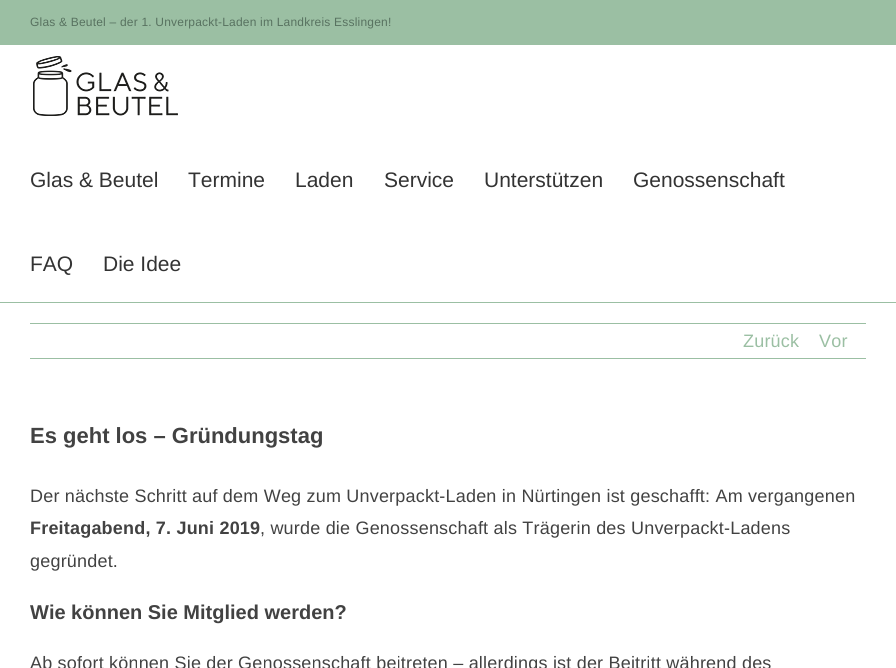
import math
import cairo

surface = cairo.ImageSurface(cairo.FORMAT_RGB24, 896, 668)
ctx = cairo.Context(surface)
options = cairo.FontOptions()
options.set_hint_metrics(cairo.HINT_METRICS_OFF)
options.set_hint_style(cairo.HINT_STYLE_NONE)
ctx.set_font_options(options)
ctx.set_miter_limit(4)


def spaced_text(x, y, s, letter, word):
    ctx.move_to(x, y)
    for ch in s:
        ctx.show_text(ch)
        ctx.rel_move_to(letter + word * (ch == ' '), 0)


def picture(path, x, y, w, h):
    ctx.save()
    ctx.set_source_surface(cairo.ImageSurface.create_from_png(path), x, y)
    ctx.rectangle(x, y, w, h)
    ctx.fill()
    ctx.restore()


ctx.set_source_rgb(1, 1, 1)
ctx.paint()
ctx.set_source_rgb(0.608, 0.749, 0.639)
ctx.rectangle(0, 0, 896, 45)
ctx.fill()
ctx.select_font_face("Liberation Sans")
ctx.set_font_size(12)
ctx.set_source_rgb(0.345, 0.447, 0.376)
spaced_text(30, 26, "Glas & Beutel – der 1. Unverpackt-Laden im Landkreis Esslingen!", 0.2, 0)
ctx.set_source_rgb(0.608, 0.749, 0.639)
ctx.rectangle(0, 302, 896, 1)
ctx.fill()
picture("img1.png", 33, 56, 145, 60)
ctx.set_font_size(21)
ctx.set_source_rgb(0.2, 0.2, 0.2)
ctx.move_to(30, 187)
ctx.show_text("Glas & Beutel")
ctx.move_to(188, 187)
ctx.show_text("Termine")
ctx.move_to(295, 187)
ctx.show_text("Laden")
ctx.move_to(384, 187)
ctx.show_text("Service")
ctx.move_to(484, 187)
ctx.show_text("Unterstützen")
ctx.move_to(633, 187)
ctx.show_text("Genossenschaft")
ctx.move_to(30, 271)
ctx.show_text("FAQ")
ctx.move_to(103, 271)
ctx.show_text("Die Idee")
ctx.set_source_rgb(0.608, 0.749, 0.639)
ctx.rectangle(30, 323, 836, 1)
ctx.fill()
ctx.rectangle(30, 358, 836, 1)
ctx.fill()
ctx.set_font_size(18)
spaced_text(743, 347, "Zurück", 0.2, 0)
spaced_text(819, 347, "Vor", 0.2, 0)
ctx.select_font_face("Liberation Sans", cairo.FONT_SLANT_NORMAL, cairo.FONT_WEIGHT_BOLD)
ctx.set_font_size(22)
ctx.set_source_rgb(0.259, 0.259, 0.259)
ctx.move_to(30, 443)
ctx.show_text("Es geht los – Gründungstag")
ctx.select_font_face("Liberation Sans")
ctx.set_font_size(18)
spaced_text(30, 502, "Der nächste Schritt auf dem Weg zum Unverpackt-Laden in Nürtingen ist geschafft: Am vergangenen", 0.2, 0)
ctx.select_font_face("Liberation Sans", cairo.FONT_SLANT_NORMAL, cairo.FONT_WEIGHT_BOLD)
spaced_text(30, 534, "Freitagabend, 7. Juni 2019", 0.2, 0)
ctx.select_font_face("Liberation Sans")
spaced_text(260, 534, ", wurde die Genossenschaft als Trägerin des Unverpackt-Ladens", 0.2, 0)
spaced_text(30, 567, "gegründet.", 0.2, 0)
ctx.select_font_face("Liberation Sans", cairo.FONT_SLANT_NORMAL, cairo.FONT_WEIGHT_BOLD)
ctx.set_font_size(20)
ctx.move_to(30, 619)
ctx.show_text("Wie können Sie Mitglied werden?")
ctx.select_font_face("Liberation Sans")
ctx.set_font_size(18)
spaced_text(30, 669, "Ab sofort können Sie der Genossenschaft beitreten – allerdings ist der Beitritt während des", 0.2, 0)
surface.write_to_png("page.png")
